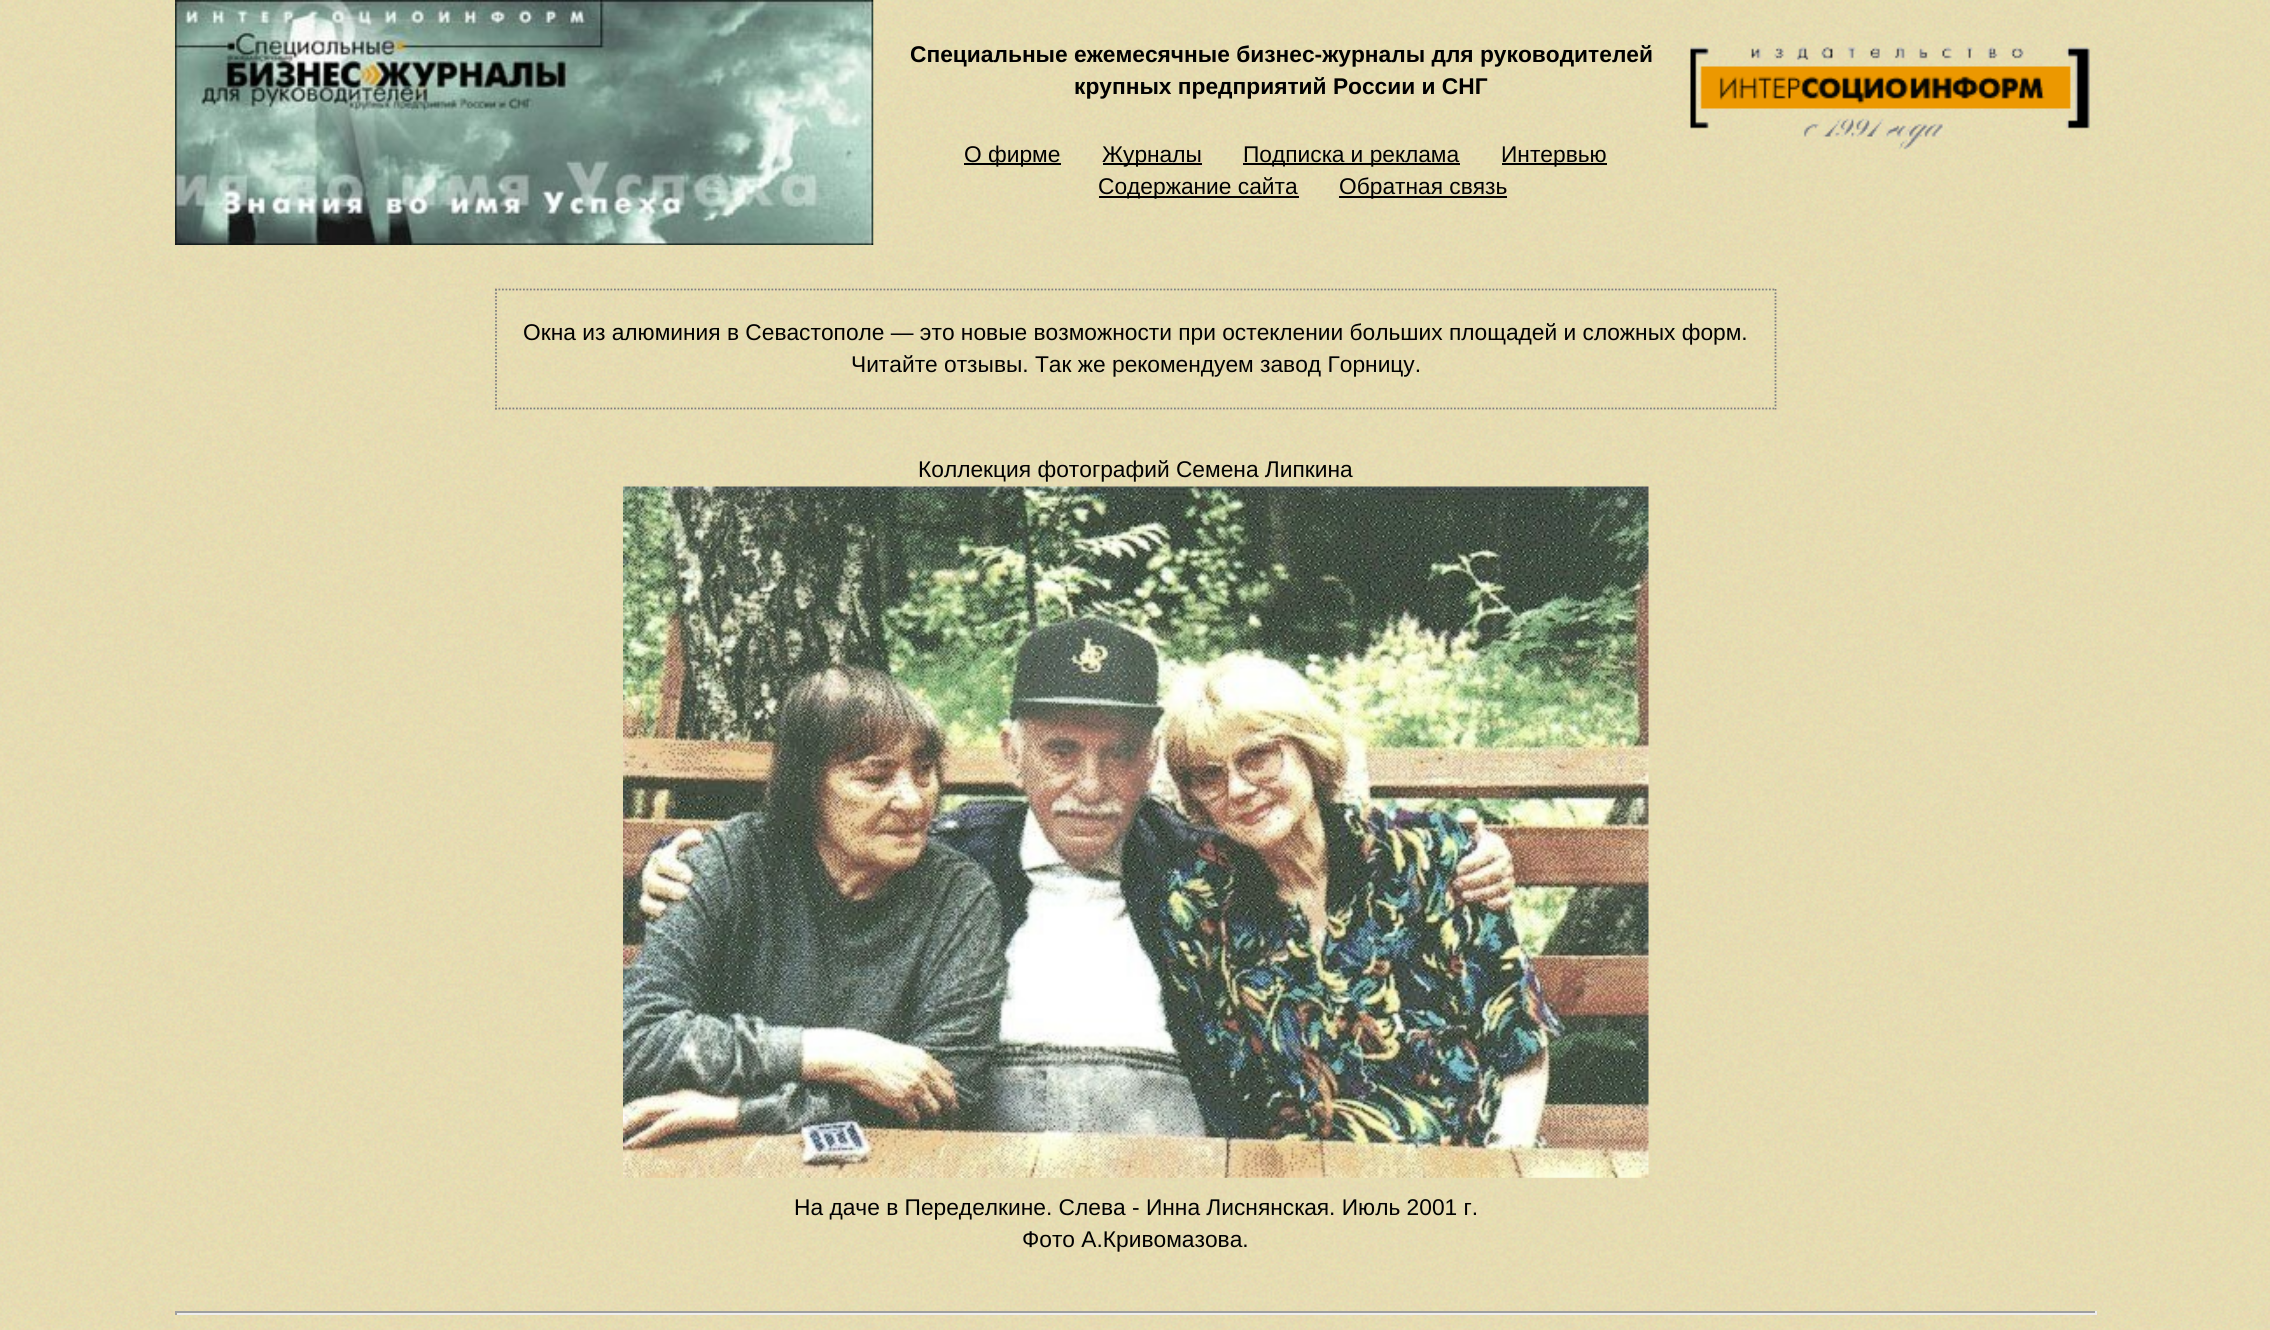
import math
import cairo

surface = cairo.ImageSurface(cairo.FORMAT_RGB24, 2270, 1330)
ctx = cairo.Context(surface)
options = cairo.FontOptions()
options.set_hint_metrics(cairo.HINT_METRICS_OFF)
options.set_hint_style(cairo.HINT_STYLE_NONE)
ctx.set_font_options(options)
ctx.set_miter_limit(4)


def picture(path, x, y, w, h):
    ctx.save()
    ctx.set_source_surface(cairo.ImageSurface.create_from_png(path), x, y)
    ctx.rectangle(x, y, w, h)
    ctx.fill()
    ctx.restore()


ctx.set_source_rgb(1, 1, 1)
ctx.paint()
picture("img1.png", 0, 0, 2270, 1330)
picture("img2.png", 175, 0, 699, 245)
ctx.select_font_face("Liberation Sans", cairo.FONT_SLANT_NORMAL, cairo.FONT_WEIGHT_BOLD)
ctx.set_font_size(22.75)
ctx.set_source_rgb(0, 0, 0)
ctx.move_to(910, 62)
ctx.show_text("Специальные ежемесячные бизнес-журналы для руководителей")
ctx.move_to(1074, 94)
ctx.show_text("крупных предприятий России и СНГ")
ctx.rectangle(964, 163, 97, 2)
ctx.fill()
ctx.select_font_face("Liberation Sans")
ctx.move_to(964, 162)
ctx.show_text("О фирме")
ctx.rectangle(1103, 163, 99, 2)
ctx.fill()
ctx.move_to(1102, 162)
ctx.show_text("Журналы")
ctx.rectangle(1243, 163, 217, 2)
ctx.fill()
ctx.move_to(1243, 162)
ctx.show_text("Подписка и реклама")
ctx.rectangle(1502, 163, 105, 2)
ctx.fill()
ctx.move_to(1501, 162)
ctx.show_text("Интервью")
ctx.rectangle(1099, 196, 200, 2)
ctx.fill()
ctx.move_to(1098, 194)
ctx.show_text("Содержание сайта")
ctx.rectangle(1339, 196, 168, 2)
ctx.fill()
ctx.move_to(1339, 194)
ctx.show_text("Обратная связь")
picture("img3.png", 1690, 46, 400, 104)
ctx.new_path()
ctx.move_to(495, 289.5)
ctx.line_to(1776, 289.5)
ctx.set_source_rgb(0.502, 0.502, 0.502)
ctx.set_line_width(1.8)
ctx.set_dash([1.75, 1.75])
ctx.stroke()
ctx.new_path()
ctx.move_to(1775.5, 289)
ctx.line_to(1775.5, 409.5)
ctx.stroke()
ctx.new_path()
ctx.move_to(495, 408.5)
ctx.line_to(1776, 408.5)
ctx.stroke()
ctx.new_path()
ctx.move_to(496, 289)
ctx.line_to(496, 409.5)
ctx.stroke()
ctx.set_source_rgb(0, 0, 0)
ctx.move_to(523, 340)
ctx.show_text("Окна из алюминия в Севастополе — это новые возможности при остеклении больших площадей и сложных форм.")
ctx.move_to(851, 372)
ctx.show_text("Читайте отзывы. Так же рекомендуем завод Горницу.")
ctx.move_to(918, 477)
ctx.show_text("Коллекция фотографий Семена Липкина")
picture("img4.png", 623, 486, 1026, 692)
ctx.move_to(794, 1215)
ctx.show_text("На даче в Переделкине. Слева - Инна Лиснянская. Июль 2001 г.")
ctx.move_to(1022, 1247)
ctx.show_text("Фото А.Кривомазова.")
ctx.set_source_rgb(0.624, 0.624, 0.624)
ctx.rectangle(175, 1311, 1922, 2)
ctx.fill()
ctx.set_source_rgb(0.933, 0.933, 0.933)
ctx.rectangle(2095, 1311, 2, 4)
ctx.fill()
ctx.rectangle(175, 1313, 1922, 2)
ctx.fill()
ctx.set_source_rgb(0.624, 0.624, 0.624)
ctx.rectangle(175, 1311, 2, 4)
ctx.fill()
surface.write_to_png("page.png")
